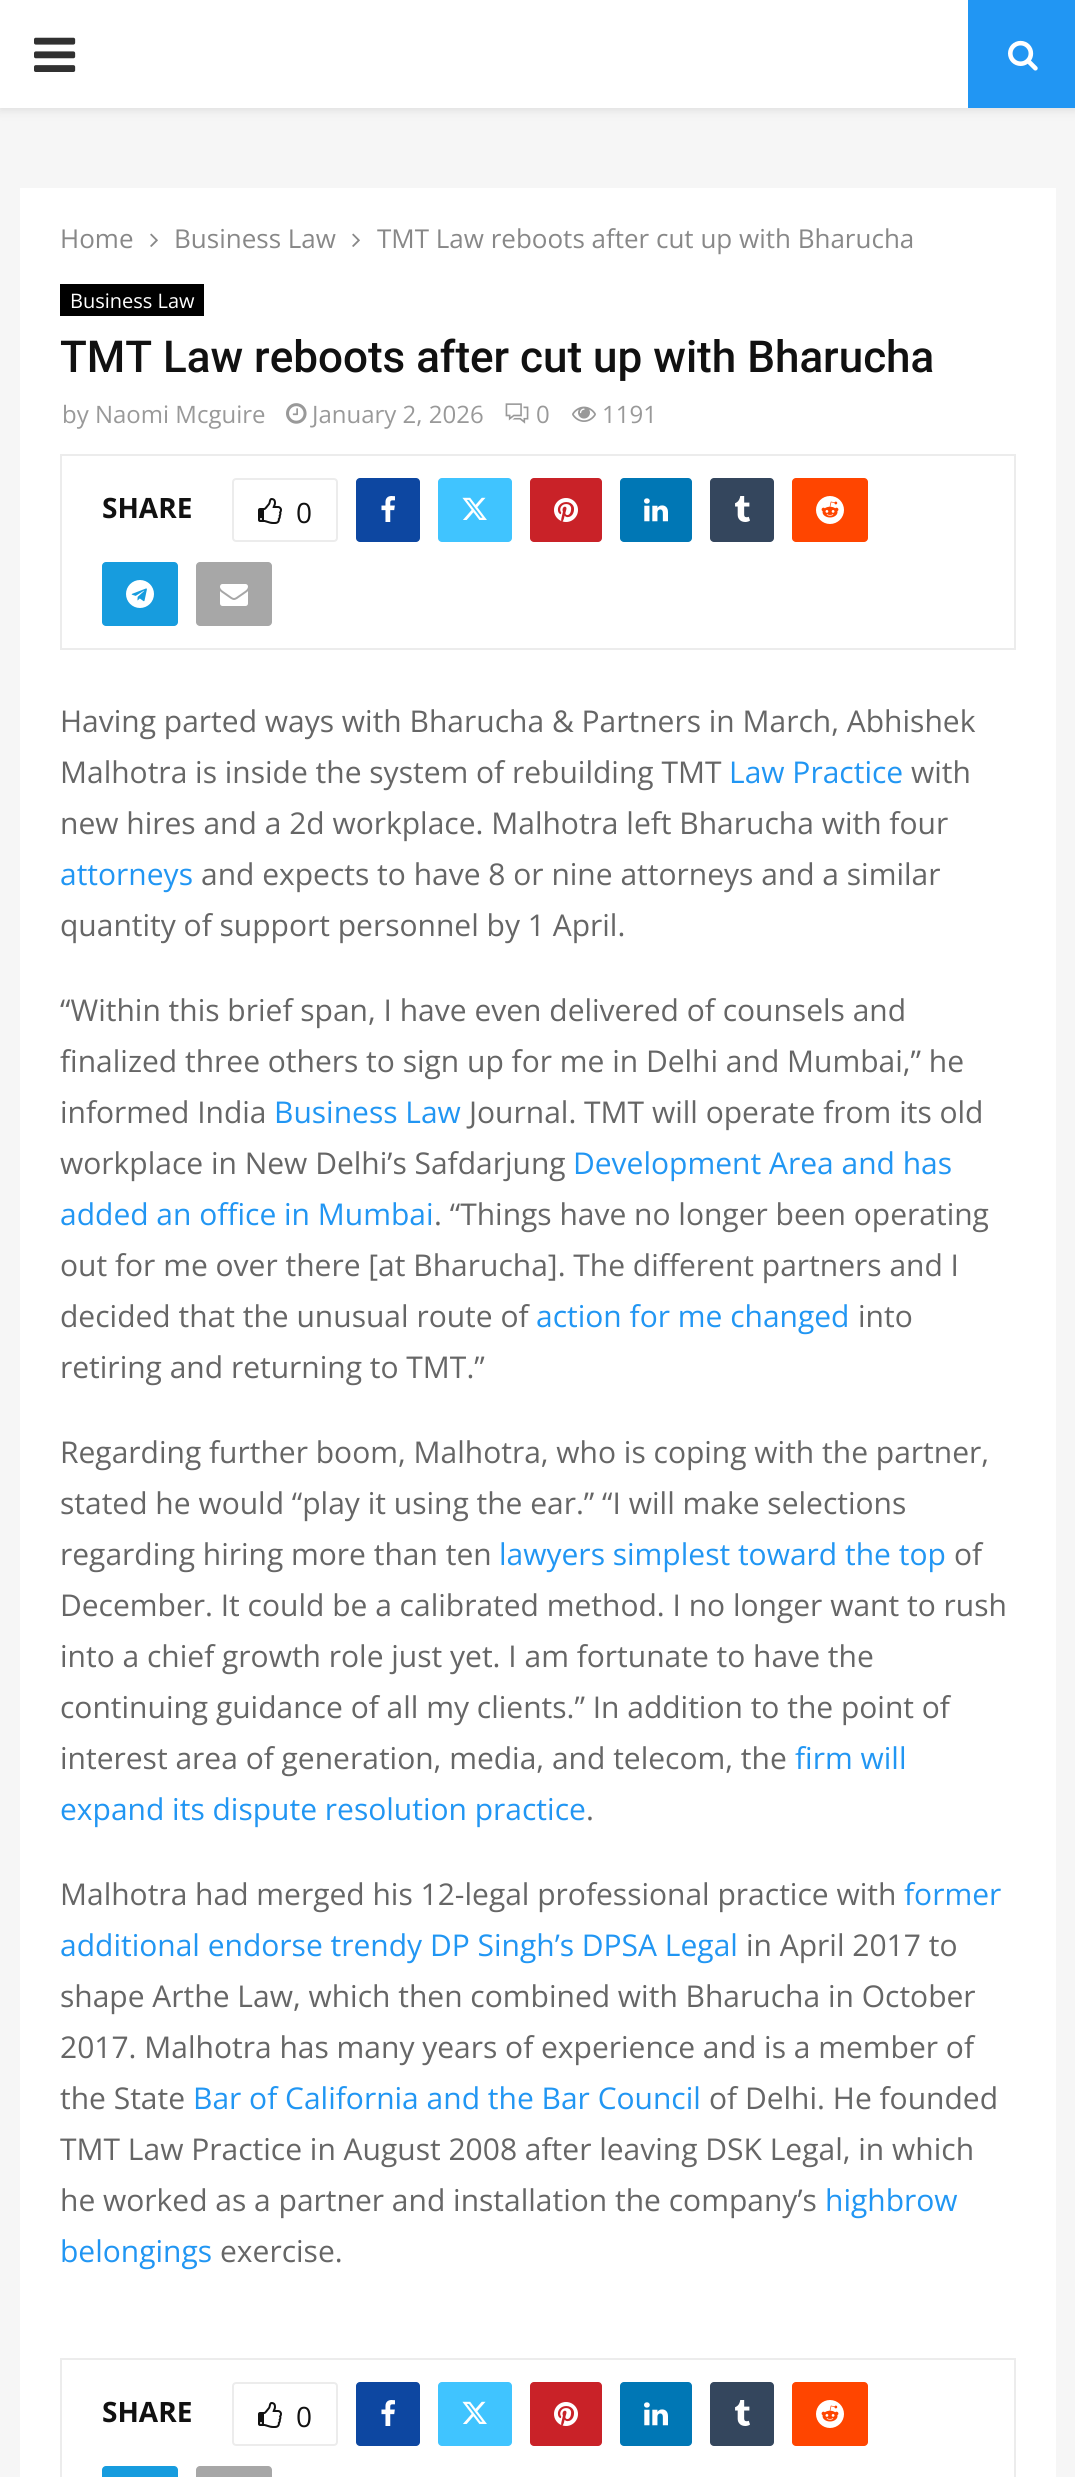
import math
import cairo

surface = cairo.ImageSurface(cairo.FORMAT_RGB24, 1075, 2477)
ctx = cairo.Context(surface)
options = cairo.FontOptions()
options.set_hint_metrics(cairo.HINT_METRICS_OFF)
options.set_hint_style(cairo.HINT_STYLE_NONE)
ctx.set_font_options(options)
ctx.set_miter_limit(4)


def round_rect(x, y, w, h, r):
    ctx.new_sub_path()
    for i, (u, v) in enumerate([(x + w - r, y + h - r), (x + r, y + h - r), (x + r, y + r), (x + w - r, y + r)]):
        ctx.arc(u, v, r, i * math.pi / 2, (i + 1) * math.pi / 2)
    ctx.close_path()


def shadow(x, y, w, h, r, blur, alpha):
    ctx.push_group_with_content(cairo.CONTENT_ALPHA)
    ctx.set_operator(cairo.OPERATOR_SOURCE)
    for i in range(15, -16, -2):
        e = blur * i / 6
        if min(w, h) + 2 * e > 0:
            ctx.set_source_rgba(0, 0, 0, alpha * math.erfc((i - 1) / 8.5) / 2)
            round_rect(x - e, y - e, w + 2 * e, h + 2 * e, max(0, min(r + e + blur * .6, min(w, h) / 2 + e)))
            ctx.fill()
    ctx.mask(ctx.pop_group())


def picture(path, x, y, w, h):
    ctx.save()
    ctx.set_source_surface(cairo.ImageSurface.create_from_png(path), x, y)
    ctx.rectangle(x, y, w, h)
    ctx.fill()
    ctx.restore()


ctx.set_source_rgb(0.961, 0.961, 0.961)
ctx.paint()
ctx.set_source_rgb(0.745, 0.745, 0.745)
shadow(0, 2, 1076, 108, 0, 5, 0.46)
ctx.set_source_rgb(1, 1, 1)
ctx.rectangle(0, 0, 968, 108)
ctx.fill()
picture("img1.png", 34, 37, 42, 35)
ctx.set_source_rgb(0.129, 0.588, 0.953)
ctx.rectangle(968, 0, 107, 108)
ctx.fill()
picture("img2.png", 1008, 40, 30, 31)
ctx.set_source_rgb(1, 1, 1)
ctx.rectangle(20, 188, 1036, 2289)
ctx.fill()
ctx.select_font_face("Open Sans")
ctx.set_font_size(26)
ctx.set_source_rgb(0.533, 0.533, 0.533)
ctx.move_to(60, 248)
ctx.show_text("Home")
picture("img3.png", 150, 233, 8, 14)
ctx.move_to(174, 248)
ctx.show_text("Business Law")
picture("img3.png", 352, 233, 8, 14)
ctx.move_to(377, 248)
ctx.show_text("TMT Law reboots after cut up with Bharucha")
ctx.set_source_rgb(0, 0, 0)
ctx.rectangle(60, 284, 144, 32)
ctx.fill()
ctx.set_font_size(20)
ctx.set_source_rgb(1, 1, 1)
ctx.move_to(70, 308)
ctx.show_text("Business Law")
ctx.select_font_face("Roboto Medium")
ctx.set_font_size(44)
ctx.set_source_rgb(0.067, 0.067, 0.067)
ctx.move_to(60, 372)
ctx.show_text("TMT Law reboots after cut up with Bharucha")
ctx.select_font_face("Open Sans")
ctx.set_font_size(24)
ctx.set_source_rgb(0.6, 0.6, 0.6)
ctx.move_to(62, 423)
ctx.show_text("by Naomi Mcguire")
picture("img4.png", 286, 403, 21, 21)
ctx.move_to(312, 423)
ctx.show_text("January 2, 2026")
picture("img5.png", 505, 403, 24, 21)
ctx.move_to(536, 423)
ctx.show_text("0")
picture("img6.png", 572, 406, 24, 16)
ctx.move_to(602, 423)
ctx.show_text("1191")
ctx.rectangle(61, 455, 954, 194)
ctx.set_source_rgb(0.925, 0.925, 0.925)
ctx.stroke()
ctx.select_font_face("Open Sans", cairo.FONT_SLANT_NORMAL, cairo.FONT_WEIGHT_BOLD)
ctx.set_font_size(28)
ctx.set_source_rgb(0.067, 0.067, 0.067)
ctx.move_to(102, 518)
ctx.show_text("SHARE")
round_rect(233, 479, 104, 62, 3)
ctx.set_source_rgb(0.925, 0.925, 0.925)
ctx.stroke()
picture("img7.png", 258, 498, 24, 26)
ctx.select_font_face("Open Sans")
ctx.set_source_rgb(0.067, 0.067, 0.067)
ctx.move_to(296, 523)
ctx.show_text("0")
ctx.set_source_rgb(0.051, 0.278, 0.631)
round_rect(356, 478, 64, 64, 4)
ctx.fill()
picture("img8.png", 381, 496, 14, 26)
ctx.set_source_rgb(0.251, 0.769, 1)
round_rect(438, 478, 74, 64, 4)
ctx.fill()
picture("img9.png", 462, 497, 25, 23)
ctx.set_source_rgb(0.788, 0.133, 0.157)
round_rect(530, 478, 72, 64, 4)
ctx.fill()
picture("img10.png", 554, 498, 24, 24)
ctx.set_source_rgb(0, 0.467, 0.71)
round_rect(620, 478, 72, 64, 4)
ctx.fill()
picture("img11.png", 644, 498, 24, 24)
ctx.set_source_rgb(0.204, 0.275, 0.365)
round_rect(710, 478, 64, 64, 4)
ctx.fill()
picture("img12.png", 735, 496, 15, 26)
ctx.set_source_rgb(1, 0.271, 0)
round_rect(792, 478, 76, 64, 4)
ctx.fill()
picture("img13.png", 816, 496, 28, 28)
ctx.set_source_rgb(0.09, 0.612, 0.871)
round_rect(102, 562, 76, 64, 4)
ctx.fill()
picture("img14.png", 126, 580, 28, 28)
ctx.set_source_rgb(0.655, 0.655, 0.655)
round_rect(196, 562, 76, 64, 4)
ctx.fill()
picture("img15.png", 220, 584, 28, 22)
ctx.set_font_size(30)
ctx.set_source_rgb(0.4, 0.4, 0.4)
ctx.move_to(60, 732)
ctx.show_text("Having parted ways with Bharucha & Partners in March, Abhishek")
ctx.move_to(60, 783)
ctx.show_text("Malhotra is inside the system of rebuilding TMT")
ctx.set_source_rgb(0.129, 0.588, 0.953)
ctx.move_to(729, 783)
ctx.show_text("Law Practice")
ctx.set_source_rgb(0.4, 0.4, 0.4)
ctx.move_to(911, 783)
ctx.show_text("with")
ctx.move_to(60, 834)
ctx.show_text("new hires and a 2d workplace. Malhotra left Bharucha with four")
ctx.set_source_rgb(0.129, 0.588, 0.953)
ctx.move_to(60, 885)
ctx.show_text("attorneys")
ctx.set_source_rgb(0.4, 0.4, 0.4)
ctx.move_to(201, 885)
ctx.show_text("and expects to have 8 or nine attorneys and a similar")
ctx.move_to(60, 936)
ctx.show_text("quantity of support personnel by 1 April.")
ctx.move_to(60, 1021)
ctx.show_text("“Within this brief span, I have even delivered of counsels and")
ctx.move_to(60, 1072)
ctx.show_text("finalized three others to sign up for me in Delhi and Mumbai,” he")
ctx.move_to(60, 1123)
ctx.show_text("informed India")
ctx.set_source_rgb(0.129, 0.588, 0.953)
ctx.move_to(274, 1123)
ctx.show_text("Business Law")
ctx.set_source_rgb(0.4, 0.4, 0.4)
ctx.move_to(469, 1123)
ctx.show_text("Journal. TMT will operate from its old")
ctx.move_to(60, 1174)
ctx.show_text("workplace in New Delhi’s Safdarjung")
ctx.set_source_rgb(0.129, 0.588, 0.953)
ctx.move_to(573, 1174)
ctx.show_text("Development Area and has")
ctx.move_to(60, 1225)
ctx.show_text("added an office in Mumbai")
ctx.set_source_rgb(0.4, 0.4, 0.4)
ctx.move_to(434, 1225)
ctx.show_text(". “Things have no longer been operating")
ctx.move_to(60, 1276)
ctx.show_text("out for me over there [at Bharucha]. The different partners and I")
ctx.move_to(60, 1327)
ctx.show_text("decided that the unusual route of")
ctx.set_source_rgb(0.129, 0.588, 0.953)
ctx.move_to(536, 1327)
ctx.show_text("action for me changed")
ctx.set_source_rgb(0.4, 0.4, 0.4)
ctx.move_to(858, 1327)
ctx.show_text("into")
ctx.move_to(60, 1378)
ctx.show_text("retiring and returning to TMT.”")
ctx.move_to(60, 1463)
ctx.show_text("Regarding further boom, Malhotra, who is coping with the partner,")
ctx.move_to(60, 1514)
ctx.show_text("stated he would “play it using the ear.” “I will make selections")
ctx.move_to(60, 1565)
ctx.show_text("regarding hiring more than ten")
ctx.set_source_rgb(0.129, 0.588, 0.953)
ctx.move_to(499, 1565)
ctx.show_text("lawyers simplest toward the top")
ctx.set_source_rgb(0.4, 0.4, 0.4)
ctx.move_to(954, 1565)
ctx.show_text("of")
ctx.move_to(60, 1616)
ctx.show_text("December. It could be a calibrated method. I no longer want to rush")
ctx.move_to(60, 1667)
ctx.show_text("into a chief growth role just yet. I am fortunate to have the")
ctx.move_to(60, 1718)
ctx.show_text("continuing guidance of all my clients.” In addition to the point of")
ctx.move_to(60, 1769)
ctx.show_text("interest area of generation, media, and telecom, the")
ctx.set_source_rgb(0.129, 0.588, 0.953)
ctx.move_to(795, 1769)
ctx.show_text("firm will")
ctx.move_to(60, 1820)
ctx.show_text("expand its dispute resolution practice")
ctx.set_source_rgb(0.4, 0.4, 0.4)
ctx.move_to(586, 1820)
ctx.show_text(".")
ctx.move_to(60, 1905)
ctx.show_text("Malhotra had merged his 12-legal professional practice with")
ctx.set_source_rgb(0.129, 0.588, 0.953)
ctx.move_to(904, 1905)
ctx.show_text("former")
ctx.move_to(60, 1956)
ctx.show_text("additional endorse trendy DP Singh’s DPSA Legal")
ctx.set_source_rgb(0.4, 0.4, 0.4)
ctx.move_to(746, 1956)
ctx.show_text("in April 2017 to")
ctx.move_to(60, 2007)
ctx.show_text("shape Arthe Law, which then combined with Bharucha in October")
ctx.move_to(60, 2058)
ctx.show_text("2017. Malhotra has many years of experience and is a member of")
ctx.move_to(60, 2109)
ctx.show_text("the State")
ctx.set_source_rgb(0.129, 0.588, 0.953)
ctx.move_to(193, 2109)
ctx.show_text("Bar of California and the Bar Council")
ctx.set_source_rgb(0.4, 0.4, 0.4)
ctx.move_to(709, 2109)
ctx.show_text("of Delhi. He founded")
ctx.move_to(60, 2160)
ctx.show_text("TMT Law Practice in August 2008 after leaving DSK Legal, in which")
ctx.move_to(60, 2211)
ctx.show_text("he worked as a partner and installation the company’s")
ctx.set_source_rgb(0.129, 0.588, 0.953)
ctx.move_to(825, 2211)
ctx.show_text("highbrow")
ctx.move_to(60, 2262)
ctx.show_text("belongings")
ctx.set_source_rgb(0.4, 0.4, 0.4)
ctx.move_to(220, 2262)
ctx.show_text("exercise.")
ctx.rectangle(61, 2359, 954, 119)
ctx.set_source_rgb(0.925, 0.925, 0.925)
ctx.stroke()
ctx.select_font_face("Open Sans", cairo.FONT_SLANT_NORMAL, cairo.FONT_WEIGHT_BOLD)
ctx.set_font_size(28)
ctx.set_source_rgb(0.067, 0.067, 0.067)
ctx.move_to(102, 2422)
ctx.show_text("SHARE")
round_rect(233, 2383, 104, 62, 3)
ctx.set_source_rgb(0.925, 0.925, 0.925)
ctx.stroke()
picture("img7.png", 258, 2402, 24, 26)
ctx.select_font_face("Open Sans")
ctx.set_source_rgb(0.067, 0.067, 0.067)
ctx.move_to(296, 2427)
ctx.show_text("0")
ctx.set_source_rgb(0.051, 0.278, 0.631)
round_rect(356, 2382, 64, 64, 4)
ctx.fill()
picture("img8.png", 381, 2400, 14, 26)
ctx.set_source_rgb(0.251, 0.769, 1)
round_rect(438, 2382, 74, 64, 4)
ctx.fill()
picture("img9.png", 462, 2401, 25, 23)
ctx.set_source_rgb(0.788, 0.133, 0.157)
round_rect(530, 2382, 72, 64, 4)
ctx.fill()
picture("img10.png", 554, 2402, 24, 24)
ctx.set_source_rgb(0, 0.467, 0.71)
round_rect(620, 2382, 72, 64, 4)
ctx.fill()
picture("img11.png", 644, 2402, 24, 24)
ctx.set_source_rgb(0.204, 0.275, 0.365)
round_rect(710, 2382, 64, 64, 4)
ctx.fill()
picture("img12.png", 735, 2400, 15, 26)
ctx.set_source_rgb(1, 0.271, 0)
round_rect(792, 2382, 76, 64, 4)
ctx.fill()
picture("img13.png", 816, 2400, 28, 28)
ctx.set_source_rgb(0.09, 0.612, 0.871)
round_rect(102, 2466, 76, 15, 4)
ctx.fill()
ctx.set_source_rgb(0.655, 0.655, 0.655)
round_rect(196, 2466, 76, 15, 4)
ctx.fill()
surface.write_to_png("page.png")
